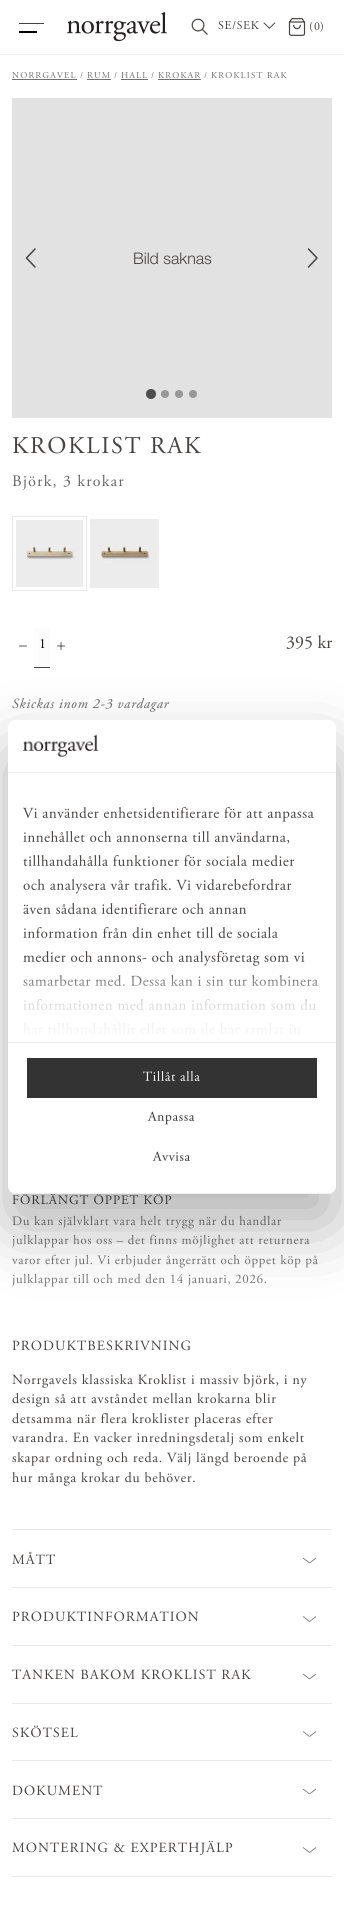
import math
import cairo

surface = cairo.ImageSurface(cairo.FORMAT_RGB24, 344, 1914)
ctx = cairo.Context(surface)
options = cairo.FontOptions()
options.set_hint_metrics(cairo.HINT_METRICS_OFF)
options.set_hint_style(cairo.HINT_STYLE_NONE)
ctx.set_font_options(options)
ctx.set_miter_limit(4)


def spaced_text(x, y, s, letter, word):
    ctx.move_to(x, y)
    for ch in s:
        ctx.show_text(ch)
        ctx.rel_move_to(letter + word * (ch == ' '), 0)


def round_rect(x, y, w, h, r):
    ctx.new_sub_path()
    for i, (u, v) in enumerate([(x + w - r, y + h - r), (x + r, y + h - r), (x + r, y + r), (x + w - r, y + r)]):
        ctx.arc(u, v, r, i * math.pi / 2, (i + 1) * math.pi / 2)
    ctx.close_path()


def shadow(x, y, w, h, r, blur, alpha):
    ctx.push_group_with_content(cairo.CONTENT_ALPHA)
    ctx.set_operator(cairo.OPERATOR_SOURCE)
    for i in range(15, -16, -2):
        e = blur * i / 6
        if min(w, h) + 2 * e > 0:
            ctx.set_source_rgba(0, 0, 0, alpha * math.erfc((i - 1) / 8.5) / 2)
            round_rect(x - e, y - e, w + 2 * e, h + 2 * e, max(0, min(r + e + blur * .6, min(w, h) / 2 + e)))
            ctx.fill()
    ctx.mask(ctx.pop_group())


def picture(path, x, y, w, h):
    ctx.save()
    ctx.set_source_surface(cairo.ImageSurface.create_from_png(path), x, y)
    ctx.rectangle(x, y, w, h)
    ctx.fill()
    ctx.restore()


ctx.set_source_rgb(1, 1, 1)
ctx.paint()
ctx.set_source_rgb(0.933, 0.933, 0.933)
ctx.rectangle(0, 54, 344, 1)
ctx.fill()
ctx.set_source_rgb(0.275, 0.263, 0.255)
ctx.rectangle(19, 23, 25, 1)
ctx.fill()
ctx.set_source_rgb(0, 0, 0)
ctx.rectangle(19, 31, 18, 2)
ctx.fill()
picture("img1.png", 67, 12, 100, 30)
picture("img2.png", 191, 18, 17, 17)
picture("img3.png", 218, 20, 41, 10)
picture("img4.png", 263, 22, 13, 7)
picture("img5.png", 288, 18, 18, 18)
picture("img6.png", 310, 21, 3, 11)
picture("img7.png", 314, 22, 6, 9)
picture("img8.png", 320, 21, 3, 11)
picture("img9.png", 12, 71, 64, 8)
ctx.set_source_rgb(0.439, 0.439, 0.439)
ctx.new_path()
ctx.move_to(82.5, 72)
ctx.line_to(82, 72)
ctx.line_to(80.5, 78)
ctx.line_to(81, 78)
ctx.close_path()
ctx.fill()
ctx.rectangle(12, 79, 65, 1)
ctx.fill()
picture("img10.png", 87, 72, 23, 7)
ctx.new_path()
ctx.move_to(116.5, 72)
ctx.line_to(116, 72)
ctx.line_to(114.5, 78)
ctx.line_to(115, 78)
ctx.close_path()
ctx.fill()
ctx.rectangle(87, 79, 24, 1)
ctx.fill()
picture("img11.png", 121, 72, 27, 6)
ctx.new_path()
ctx.move_to(153.5, 72)
ctx.line_to(153, 72)
ctx.line_to(151.5, 78)
ctx.line_to(152, 78)
ctx.close_path()
ctx.fill()
ctx.rectangle(121, 79, 27, 1)
ctx.fill()
picture("img12.png", 158, 71, 43, 8)
ctx.new_path()
ctx.move_to(206.5, 72)
ctx.line_to(206, 72)
ctx.line_to(204.5, 78)
ctx.line_to(205, 78)
ctx.close_path()
ctx.fill()
ctx.rectangle(158, 79, 43, 1)
ctx.fill()
picture("img13.png", 211, 71, 76, 8)
ctx.set_source_rgb(0.886, 0.886, 0.886)
ctx.rectangle(12, 98, 320, 320)
ctx.fill()
ctx.new_path()
ctx.move_to(35, 267)
ctx.line_to(26.5, 258)
ctx.line_to(35, 249)
ctx.set_source_rgb(0.275, 0.263, 0.255)
ctx.set_line_width(1.5)
ctx.set_line_cap(cairo.LINE_CAP_ROUND)
ctx.set_line_join(cairo.LINE_JOIN_ROUND)
ctx.stroke()
ctx.select_font_face("Helvetica Neue Light")
ctx.set_font_size(16)
ctx.move_to(133, 264)
ctx.show_text("Bild saknas")
ctx.new_path()
ctx.move_to(308.5, 267)
ctx.line_to(317, 258)
ctx.line_to(308.5, 249)
ctx.stroke()
ctx.set_source_rgb(0.302, 0.302, 0.302)
ctx.arc(151, 394, 5, 0, 2 * math.pi)
ctx.fill()
ctx.set_source_rgb(0.596, 0.596, 0.596)
ctx.arc(165, 394, 4, 0, 2 * math.pi)
ctx.fill()
ctx.arc(179, 394, 4, 0, 2 * math.pi)
ctx.fill()
ctx.arc(193, 394, 4, 0, 2 * math.pi)
ctx.fill()
picture("img14.png", 13, 436, 188, 18)
picture("img15.png", 12, 474, 112, 17)
ctx.rectangle(12.5, 516.5, 74, 74)
ctx.set_source_rgb(0.91, 0.91, 0.91)
ctx.set_line_width(1)
ctx.set_line_cap(cairo.LINE_CAP_BUTT)
ctx.set_line_join(cairo.LINE_JOIN_MITER)
ctx.stroke()
picture("img16.png", 16, 520, 67, 67)
picture("img17.png", 90, 519, 69, 69)
ctx.set_source_rgb(0.988, 0.988, 0.988)
ctx.rectangle(34, 628, 16, 39)
ctx.fill()
ctx.set_source_rgb(0.275, 0.263, 0.255)
ctx.rectangle(34, 667, 16, 1)
ctx.fill()
picture("img18.png", 40, 639, 5, 9)
ctx.new_path()
ctx.move_to(26.5, 646)
ctx.line_to(19.5, 646)
ctx.move_to(64.5, 646)
ctx.line_to(57.5, 646)
ctx.move_to(61, 642.5)
ctx.line_to(61, 649.5)
ctx.set_source_rgb(0.2, 0.2, 0.2)
ctx.set_line_width(0.8)
ctx.set_line_cap(cairo.LINE_CAP_SQUARE)
ctx.stroke()
picture("img19.png", 286, 635, 47, 15)
ctx.select_font_face("Adobe Garamond", cairo.FONT_SLANT_ITALIC)
ctx.set_font_size(14)
ctx.set_source_rgb(0.4, 0.4, 0.4)
spaced_text(12, 708, "Skickas inom 2-3 vardagar", 0.7, 0)
picture("img20.png", 12, 1194, 160, 11)
picture("img21.png", 12, 1215, 270, 14)
picture("img22.png", 11, 1234, 299, 14)
picture("img23.png", 12, 1254, 306, 14)
picture("img24.png", 11, 1273, 255, 14)
picture("img25.png", 12, 1340, 179, 11)
picture("img26.png", 12, 1374, 295, 14)
picture("img27.png", 12, 1393, 264, 14)
picture("img28.png", 12, 1413, 261, 14)
picture("img29.png", 12, 1432, 292, 14)
picture("img30.png", 12, 1452, 295, 14)
picture("img31.png", 12, 1472, 183, 14)
ctx.set_source_rgb(0.91, 0.91, 0.91)
ctx.rectangle(12, 1529, 320, 1)
ctx.fill()
picture("img32.png", 12, 1551, 43, 14)
ctx.new_path()
ctx.move_to(316, 1558)
ctx.line_to(309.5, 1563)
ctx.move_to(309.5, 1563)
ctx.line_to(303, 1558)
ctx.set_source_rgb(0.486, 0.486, 0.486)
ctx.set_line_width(0.9)
ctx.set_line_cap(cairo.LINE_CAP_BUTT)
ctx.stroke()
ctx.set_source_rgb(0.91, 0.91, 0.91)
ctx.rectangle(12, 1587, 320, 1)
ctx.fill()
picture("img33.png", 12, 1611, 187, 11)
ctx.new_path()
ctx.move_to(316, 1616.5)
ctx.line_to(309.5, 1621.5)
ctx.move_to(309.5, 1621.5)
ctx.line_to(303, 1616.5)
ctx.set_source_rgb(0.486, 0.486, 0.486)
ctx.stroke()
ctx.set_source_rgb(0.91, 0.91, 0.91)
ctx.rectangle(12, 1645, 320, 1)
ctx.fill()
picture("img34.png", 12, 1669, 239, 11)
ctx.new_path()
ctx.move_to(316, 1674)
ctx.line_to(309.5, 1679)
ctx.move_to(309.5, 1679)
ctx.line_to(303, 1674)
ctx.set_source_rgb(0.486, 0.486, 0.486)
ctx.stroke()
ctx.set_source_rgb(0.91, 0.91, 0.91)
ctx.rectangle(12, 1703, 320, 1)
ctx.fill()
picture("img35.png", 12, 1725, 66, 13)
ctx.new_path()
ctx.move_to(316, 1731.5)
ctx.line_to(309.5, 1736.5)
ctx.move_to(309.5, 1736.5)
ctx.line_to(303, 1731.5)
ctx.set_source_rgb(0.486, 0.486, 0.486)
ctx.stroke()
ctx.set_source_rgb(0.91, 0.91, 0.91)
ctx.rectangle(12, 1760, 320, 1)
ctx.fill()
picture("img36.png", 12, 1785, 91, 11)
ctx.new_path()
ctx.move_to(316, 1789)
ctx.line_to(309.5, 1794)
ctx.move_to(309.5, 1794)
ctx.line_to(303, 1789)
ctx.set_source_rgb(0.486, 0.486, 0.486)
ctx.stroke()
ctx.set_source_rgb(0.91, 0.91, 0.91)
ctx.rectangle(12, 1818, 320, 1)
ctx.fill()
ctx.rectangle(12, 1876, 320, 1)
ctx.fill()
picture("img37.png", 12, 1840, 221, 15)
ctx.new_path()
ctx.move_to(316, 1847.5)
ctx.line_to(309.5, 1852.5)
ctx.move_to(309.5, 1852.5)
ctx.line_to(303, 1847.5)
ctx.set_source_rgb(0.486, 0.486, 0.486)
ctx.stroke()
ctx.set_source_rgb(0, 0, 0)
shadow(8, 752, 328, 474, 8, 34, 0.3)
ctx.set_source_rgb(1, 1, 1)
round_rect(8, 720, 328, 474, 8)
ctx.fill()
ctx.set_source_rgb(0.933, 0.933, 0.933)
ctx.rectangle(8, 772, 328, 1)
ctx.fill()
picture("img38.png", 23, 734, 76, 23)
ctx.rectangle(8, 1042, 328, 1)
ctx.fill()
picture("img39.png", 23, 807, 291, 15)
picture("img40.png", 23, 831, 267, 13)
picture("img41.png", 23, 855, 272, 12)
picture("img42.png", 23, 879, 269, 15)
picture("img43.png", 23, 903, 224, 12)
picture("img44.png", 23, 927, 255, 12)
picture("img45.png", 23, 951, 282, 15)
picture("img46.png", 23, 975, 295, 12)
picture("img47.png", 23, 999, 293, 12)
picture("img48.png", 23, 1023, 278, 12)
gradient = cairo.LinearGradient(166, 1042, 166, 967)
gradient.add_color_stop_rgba(0, 1, 1, 1, 1)
gradient.add_color_stop_rgba(0.5, 1, 1, 1, 0.8)
gradient.add_color_stop_rgba(1, 1, 1, 1, 0)
ctx.set_source(gradient)
ctx.rectangle(23, 975, 295, 60)
ctx.fill()
ctx.save()
round_rect(8, 720, 328, 474, 8)
ctx.clip()
ctx.set_source_rgb(0.933, 0.933, 0.933)
ctx.rectangle(8, 1193, 328, 1)
ctx.fill()
ctx.restore()
ctx.set_source_rgb(0.2, 0.2, 0.2)
ctx.rectangle(27, 1058, 290, 40)
ctx.fill()
picture("img49.png", 143, 1071, 57, 10)
picture("img50.png", 147, 1111, 48, 14)
picture("img51.png", 152, 1151, 38, 10)
surface.write_to_png("page.png")
